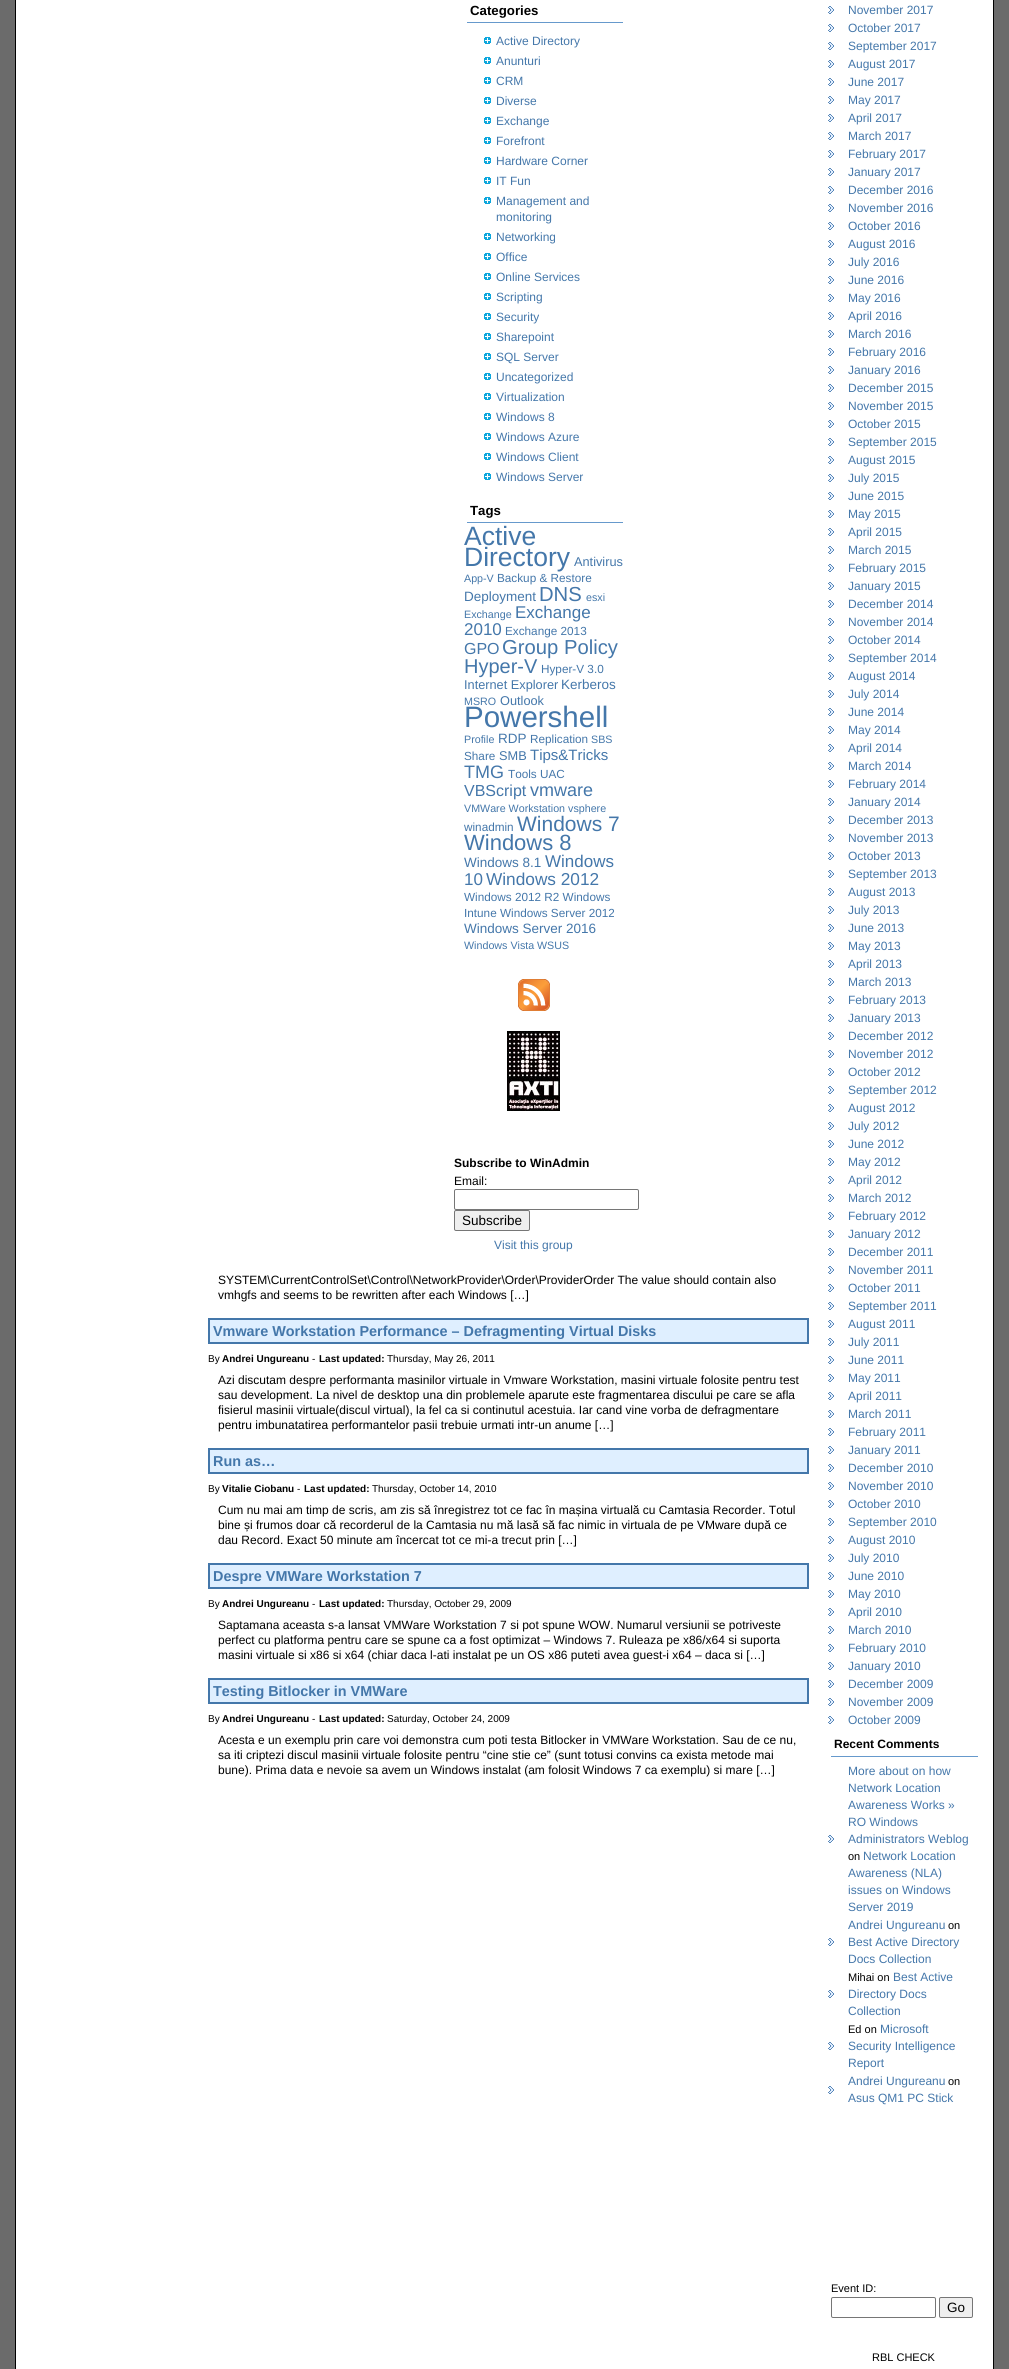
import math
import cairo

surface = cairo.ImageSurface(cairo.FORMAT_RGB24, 1009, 2369)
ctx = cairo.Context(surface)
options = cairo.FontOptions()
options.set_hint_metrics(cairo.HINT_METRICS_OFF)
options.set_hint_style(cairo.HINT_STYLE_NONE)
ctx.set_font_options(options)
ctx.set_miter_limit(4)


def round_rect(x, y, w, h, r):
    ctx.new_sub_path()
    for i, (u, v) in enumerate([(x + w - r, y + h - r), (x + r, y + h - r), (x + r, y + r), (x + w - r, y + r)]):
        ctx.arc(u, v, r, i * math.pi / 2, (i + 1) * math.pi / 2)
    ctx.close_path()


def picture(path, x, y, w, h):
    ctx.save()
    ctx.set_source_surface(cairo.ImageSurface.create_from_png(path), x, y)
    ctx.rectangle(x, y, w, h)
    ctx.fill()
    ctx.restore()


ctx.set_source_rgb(0.42, 0.42, 0.42)
ctx.paint()
ctx.set_source_rgb(1, 1, 1)
ctx.rectangle(15.5, -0.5, 978, 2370)
ctx.fill_preserve()
ctx.set_source_rgb(0, 0, 0)
ctx.set_line_width(1)
ctx.stroke()
ctx.set_source_rgb(0.4, 0.6, 0.8)
ctx.rectangle(467, 22, 156, 1)
ctx.fill()
ctx.select_font_face("Liberation Sans", cairo.FONT_SLANT_NORMAL, cairo.FONT_WEIGHT_BOLD)
ctx.set_font_size(13.25)
ctx.set_source_rgb(0, 0, 0)
ctx.move_to(470, 15)
ctx.show_text("Categories")
picture("img1.png", 484, 37, 7, 7)
ctx.select_font_face("Liberation Sans")
ctx.set_font_size(12)
ctx.set_source_rgb(0.267, 0.467, 0.667)
ctx.move_to(496, 45)
ctx.show_text("Active Directory")
picture("img1.png", 484, 57, 7, 7)
ctx.move_to(496, 65)
ctx.show_text("Anunturi")
picture("img1.png", 484, 77, 7, 7)
ctx.move_to(496, 85)
ctx.show_text("CRM")
picture("img1.png", 484, 97, 7, 7)
ctx.move_to(496, 105)
ctx.show_text("Diverse")
picture("img1.png", 484, 117, 7, 7)
ctx.move_to(496, 125)
ctx.show_text("Exchange")
picture("img1.png", 484, 137, 7, 7)
ctx.move_to(496, 145)
ctx.show_text("Forefront")
picture("img1.png", 484, 157, 7, 7)
ctx.move_to(496, 165)
ctx.show_text("Hardware Corner")
picture("img1.png", 484, 177, 7, 7)
ctx.move_to(496, 185)
ctx.show_text("IT Fun")
picture("img1.png", 484, 197, 7, 7)
ctx.move_to(496, 205)
ctx.show_text("Management and")
ctx.move_to(496, 221)
ctx.show_text("monitoring")
picture("img1.png", 484, 233, 7, 7)
ctx.move_to(496, 241)
ctx.show_text("Networking")
picture("img1.png", 484, 253, 7, 7)
ctx.move_to(496, 261)
ctx.show_text("Office")
picture("img1.png", 484, 273, 7, 7)
ctx.move_to(496, 281)
ctx.show_text("Online Services")
picture("img1.png", 484, 293, 7, 7)
ctx.move_to(496, 301)
ctx.show_text("Scripting")
picture("img1.png", 484, 313, 7, 7)
ctx.move_to(496, 321)
ctx.show_text("Security")
picture("img1.png", 484, 333, 7, 7)
ctx.move_to(496, 341)
ctx.show_text("Sharepoint")
picture("img1.png", 484, 353, 7, 7)
ctx.move_to(496, 361)
ctx.show_text("SQL Server")
picture("img1.png", 484, 373, 7, 7)
ctx.move_to(496, 381)
ctx.show_text("Uncategorized")
picture("img1.png", 484, 393, 7, 7)
ctx.move_to(496, 401)
ctx.show_text("Virtualization")
picture("img1.png", 484, 413, 7, 7)
ctx.move_to(496, 421)
ctx.show_text("Windows 8")
picture("img1.png", 484, 433, 7, 7)
ctx.move_to(496, 441)
ctx.show_text("Windows Azure")
picture("img1.png", 484, 453, 7, 7)
ctx.move_to(496, 461)
ctx.show_text("Windows Client")
picture("img1.png", 484, 473, 7, 7)
ctx.move_to(496, 481)
ctx.show_text("Windows Server")
ctx.set_source_rgb(0.4, 0.6, 0.8)
ctx.rectangle(467, 522, 156, 1)
ctx.fill()
ctx.select_font_face("Liberation Sans", cairo.FONT_SLANT_NORMAL, cairo.FONT_WEIGHT_BOLD)
ctx.set_font_size(13.25)
ctx.set_source_rgb(0, 0, 0)
ctx.move_to(470, 515)
ctx.show_text("Tags")
ctx.select_font_face("Liberation Sans")
ctx.set_font_size(26.5)
ctx.set_source_rgb(0.267, 0.467, 0.667)
ctx.move_to(464, 545)
ctx.show_text("Active")
ctx.move_to(464, 566)
ctx.show_text("Directory")
ctx.set_font_size(12.75)
ctx.move_to(574, 566)
ctx.show_text("Antivirus")
ctx.set_font_size(10.7)
ctx.move_to(464, 582)
ctx.show_text("App-V")
ctx.set_font_size(11.75)
ctx.move_to(497, 582)
ctx.show_text("Backup & Restore")
ctx.set_font_size(13.5)
ctx.move_to(464, 601)
ctx.show_text("Deployment")
ctx.set_font_size(20.25)
ctx.move_to(539, 601)
ctx.show_text("DNS")
ctx.set_font_size(10.7)
ctx.move_to(586, 601)
ctx.show_text("esxi")
ctx.move_to(464, 618)
ctx.show_text("Exchange")
ctx.set_font_size(17)
ctx.move_to(515, 618)
ctx.show_text("Exchange")
ctx.move_to(464, 635)
ctx.show_text("2010")
ctx.set_font_size(11.75)
ctx.move_to(505, 635)
ctx.show_text("Exchange 2013")
ctx.set_font_size(16)
ctx.move_to(464, 654)
ctx.show_text("GPO")
ctx.set_font_size(20.25)
ctx.move_to(502, 654)
ctx.show_text("Group Policy")
ctx.set_font_size(20)
ctx.move_to(464, 673)
ctx.show_text("Hyper-V")
ctx.set_font_size(11.75)
ctx.move_to(541, 673)
ctx.show_text("Hyper-V 3.0")
ctx.set_font_size(12.75)
ctx.move_to(464, 689)
ctx.show_text("Internet Explorer")
ctx.set_font_size(13.5)
ctx.move_to(561, 689)
ctx.show_text("Kerberos")
ctx.set_font_size(10.7)
ctx.move_to(464, 705)
ctx.show_text("MSRO")
ctx.set_font_size(12.75)
ctx.move_to(500, 705)
ctx.show_text("Outlook")
ctx.set_font_size(29.5)
ctx.move_to(464, 727)
ctx.show_text("Powershell")
ctx.set_font_size(10.7)
ctx.move_to(464, 743)
ctx.show_text("Profile")
ctx.set_font_size(13.5)
ctx.move_to(498, 743)
ctx.show_text("RDP")
ctx.set_font_size(11.75)
ctx.move_to(530, 743)
ctx.show_text("Replication")
ctx.set_font_size(10.7)
ctx.move_to(591, 743)
ctx.show_text("SBS")
ctx.set_font_size(11.75)
ctx.move_to(464, 760)
ctx.show_text("Share")
ctx.set_font_size(12.75)
ctx.move_to(499, 760)
ctx.show_text("SMB")
ctx.set_font_size(15)
ctx.move_to(530, 760)
ctx.show_text("Tips&Tricks")
ctx.set_font_size(18)
ctx.move_to(464, 778)
ctx.show_text("TMG")
ctx.set_font_size(11.75)
ctx.move_to(508, 778)
ctx.show_text("Tools UAC")
ctx.set_font_size(16)
ctx.move_to(464, 796)
ctx.show_text("VBScript")
ctx.set_font_size(18)
ctx.move_to(530, 796)
ctx.show_text("vmware")
ctx.set_font_size(10.7)
ctx.move_to(464, 812)
ctx.show_text("VMWare Workstation vsphere")
ctx.set_font_size(11.75)
ctx.move_to(464, 831)
ctx.show_text("winadmin")
ctx.set_font_size(21)
ctx.move_to(517, 831)
ctx.show_text("Windows 7")
ctx.set_font_size(22)
ctx.move_to(464, 850)
ctx.show_text("Windows 8")
ctx.set_font_size(13.5)
ctx.move_to(464, 867)
ctx.show_text("Windows 8.1")
ctx.set_font_size(17)
ctx.move_to(545, 867)
ctx.show_text("Windows")
ctx.move_to(464, 885)
ctx.show_text("10")
ctx.set_font_size(17.25)
ctx.move_to(486, 885)
ctx.show_text("Windows 2012")
ctx.set_font_size(11.75)
ctx.move_to(464, 901)
ctx.show_text("Windows 2012 R2 Windows")
ctx.move_to(464, 917)
ctx.show_text("Intune Windows Server 2012")
ctx.set_font_size(13.5)
ctx.move_to(464, 933)
ctx.show_text("Windows Server 2016")
ctx.set_font_size(10.7)
ctx.move_to(464, 949)
ctx.show_text("Windows Vista")
ctx.move_to(537, 949)
ctx.show_text("WSUS")
picture("img2.png", 518, 979, 32, 32)
picture("img3.png", 507, 1031, 53, 80)
ctx.select_font_face("Liberation Sans", cairo.FONT_SLANT_NORMAL, cairo.FONT_WEIGHT_BOLD)
ctx.set_font_size(12)
ctx.set_source_rgb(0, 0, 0)
ctx.move_to(454, 1167)
ctx.show_text("Subscribe to WinAdmin")
ctx.select_font_face("Liberation Sans")
ctx.move_to(454, 1185)
ctx.show_text("Email:")
round_rect(454.5, 1189.5, 184, 20, 1.5)
ctx.set_source_rgb(0.463, 0.463, 0.463)
ctx.stroke()
ctx.set_source_rgb(0.937, 0.937, 0.937)
round_rect(454.5, 1210.5, 75, 20, 1.5)
ctx.fill_preserve()
ctx.set_source_rgb(0.463, 0.463, 0.463)
ctx.stroke()
ctx.set_font_size(13.5)
ctx.set_source_rgb(0, 0, 0)
ctx.move_to(462, 1225)
ctx.show_text("Subscribe")
ctx.set_font_size(12)
ctx.set_source_rgb(0.267, 0.467, 0.667)
ctx.move_to(494, 1249)
ctx.show_text("Visit this group")
picture("img4.png", 828, 6, 6, 8)
ctx.move_to(848, 14)
ctx.show_text("November 2017")
picture("img4.png", 828, 24, 6, 8)
ctx.move_to(848, 32)
ctx.show_text("October 2017")
picture("img4.png", 828, 42, 6, 8)
ctx.move_to(848, 50)
ctx.show_text("September 2017")
picture("img4.png", 828, 60, 6, 8)
ctx.move_to(848, 68)
ctx.show_text("August 2017")
picture("img4.png", 828, 78, 6, 8)
ctx.move_to(848, 86)
ctx.show_text("June 2017")
picture("img4.png", 828, 96, 6, 8)
ctx.move_to(848, 104)
ctx.show_text("May 2017")
picture("img4.png", 828, 114, 6, 8)
ctx.move_to(848, 122)
ctx.show_text("April 2017")
picture("img4.png", 828, 132, 6, 8)
ctx.move_to(848, 140)
ctx.show_text("March 2017")
picture("img4.png", 828, 150, 6, 8)
ctx.move_to(848, 158)
ctx.show_text("February 2017")
picture("img4.png", 828, 168, 6, 8)
ctx.move_to(848, 176)
ctx.show_text("January 2017")
picture("img4.png", 828, 186, 6, 8)
ctx.move_to(848, 194)
ctx.show_text("December 2016")
picture("img4.png", 828, 204, 6, 8)
ctx.move_to(848, 212)
ctx.show_text("November 2016")
picture("img4.png", 828, 222, 6, 8)
ctx.move_to(848, 230)
ctx.show_text("October 2016")
picture("img4.png", 828, 240, 6, 8)
ctx.move_to(848, 248)
ctx.show_text("August 2016")
picture("img4.png", 828, 258, 6, 8)
ctx.move_to(848, 266)
ctx.show_text("July 2016")
picture("img4.png", 828, 276, 6, 8)
ctx.move_to(848, 284)
ctx.show_text("June 2016")
picture("img4.png", 828, 294, 6, 8)
ctx.move_to(848, 302)
ctx.show_text("May 2016")
picture("img4.png", 828, 312, 6, 8)
ctx.move_to(848, 320)
ctx.show_text("April 2016")
picture("img4.png", 828, 330, 6, 8)
ctx.move_to(848, 338)
ctx.show_text("March 2016")
picture("img4.png", 828, 348, 6, 8)
ctx.move_to(848, 356)
ctx.show_text("February 2016")
picture("img4.png", 828, 366, 6, 8)
ctx.move_to(848, 374)
ctx.show_text("January 2016")
picture("img4.png", 828, 384, 6, 8)
ctx.move_to(848, 392)
ctx.show_text("December 2015")
picture("img4.png", 828, 402, 6, 8)
ctx.move_to(848, 410)
ctx.show_text("November 2015")
picture("img4.png", 828, 420, 6, 8)
ctx.move_to(848, 428)
ctx.show_text("October 2015")
picture("img4.png", 828, 438, 6, 8)
ctx.move_to(848, 446)
ctx.show_text("September 2015")
picture("img4.png", 828, 456, 6, 8)
ctx.move_to(848, 464)
ctx.show_text("August 2015")
picture("img4.png", 828, 474, 6, 8)
ctx.move_to(848, 482)
ctx.show_text("July 2015")
picture("img4.png", 828, 492, 6, 8)
ctx.move_to(848, 500)
ctx.show_text("June 2015")
picture("img4.png", 828, 510, 6, 8)
ctx.move_to(848, 518)
ctx.show_text("May 2015")
picture("img4.png", 828, 528, 6, 8)
ctx.move_to(848, 536)
ctx.show_text("April 2015")
picture("img4.png", 828, 546, 6, 8)
ctx.move_to(848, 554)
ctx.show_text("March 2015")
picture("img4.png", 828, 564, 6, 8)
ctx.move_to(848, 572)
ctx.show_text("February 2015")
picture("img4.png", 828, 582, 6, 8)
ctx.move_to(848, 590)
ctx.show_text("January 2015")
picture("img4.png", 828, 600, 6, 8)
ctx.move_to(848, 608)
ctx.show_text("December 2014")
picture("img4.png", 828, 618, 6, 8)
ctx.move_to(848, 626)
ctx.show_text("November 2014")
picture("img4.png", 828, 636, 6, 8)
ctx.move_to(848, 644)
ctx.show_text("October 2014")
picture("img4.png", 828, 654, 6, 8)
ctx.move_to(848, 662)
ctx.show_text("September 2014")
picture("img4.png", 828, 672, 6, 8)
ctx.move_to(848, 680)
ctx.show_text("August 2014")
picture("img4.png", 828, 690, 6, 8)
ctx.move_to(848, 698)
ctx.show_text("July 2014")
picture("img4.png", 828, 708, 6, 8)
ctx.move_to(848, 716)
ctx.show_text("June 2014")
picture("img4.png", 828, 726, 6, 8)
ctx.move_to(848, 734)
ctx.show_text("May 2014")
picture("img4.png", 828, 744, 6, 8)
ctx.move_to(848, 752)
ctx.show_text("April 2014")
picture("img4.png", 828, 762, 6, 8)
ctx.move_to(848, 770)
ctx.show_text("March 2014")
picture("img4.png", 828, 780, 6, 8)
ctx.move_to(848, 788)
ctx.show_text("February 2014")
picture("img4.png", 828, 798, 6, 8)
ctx.move_to(848, 806)
ctx.show_text("January 2014")
picture("img4.png", 828, 816, 6, 8)
ctx.move_to(848, 824)
ctx.show_text("December 2013")
picture("img4.png", 828, 834, 6, 8)
ctx.move_to(848, 842)
ctx.show_text("November 2013")
picture("img4.png", 828, 852, 6, 8)
ctx.move_to(848, 860)
ctx.show_text("October 2013")
picture("img4.png", 828, 870, 6, 8)
ctx.move_to(848, 878)
ctx.show_text("September 2013")
picture("img4.png", 828, 888, 6, 8)
ctx.move_to(848, 896)
ctx.show_text("August 2013")
picture("img4.png", 828, 906, 6, 8)
ctx.move_to(848, 914)
ctx.show_text("July 2013")
picture("img4.png", 828, 924, 6, 8)
ctx.move_to(848, 932)
ctx.show_text("June 2013")
picture("img4.png", 828, 942, 6, 8)
ctx.move_to(848, 950)
ctx.show_text("May 2013")
picture("img4.png", 828, 960, 6, 8)
ctx.move_to(848, 968)
ctx.show_text("April 2013")
picture("img4.png", 828, 978, 6, 8)
ctx.move_to(848, 986)
ctx.show_text("March 2013")
picture("img4.png", 828, 996, 6, 8)
ctx.move_to(848, 1004)
ctx.show_text("February 2013")
picture("img4.png", 828, 1014, 6, 8)
ctx.move_to(848, 1022)
ctx.show_text("January 2013")
picture("img4.png", 828, 1032, 6, 8)
ctx.move_to(848, 1040)
ctx.show_text("December 2012")
picture("img4.png", 828, 1050, 6, 8)
ctx.move_to(848, 1058)
ctx.show_text("November 2012")
picture("img4.png", 828, 1068, 6, 8)
ctx.move_to(848, 1076)
ctx.show_text("October 2012")
picture("img4.png", 828, 1086, 6, 8)
ctx.move_to(848, 1094)
ctx.show_text("September 2012")
picture("img4.png", 828, 1104, 6, 8)
ctx.move_to(848, 1112)
ctx.show_text("August 2012")
picture("img4.png", 828, 1122, 6, 8)
ctx.move_to(848, 1130)
ctx.show_text("July 2012")
picture("img4.png", 828, 1140, 6, 8)
ctx.move_to(848, 1148)
ctx.show_text("June 2012")
picture("img4.png", 828, 1158, 6, 8)
ctx.move_to(848, 1166)
ctx.show_text("May 2012")
picture("img4.png", 828, 1176, 6, 8)
ctx.move_to(848, 1184)
ctx.show_text("April 2012")
picture("img4.png", 828, 1194, 6, 8)
ctx.move_to(848, 1202)
ctx.show_text("March 2012")
picture("img4.png", 828, 1212, 6, 8)
ctx.move_to(848, 1220)
ctx.show_text("February 2012")
picture("img4.png", 828, 1230, 6, 8)
ctx.move_to(848, 1238)
ctx.show_text("January 2012")
picture("img4.png", 828, 1248, 6, 8)
ctx.move_to(848, 1256)
ctx.show_text("December 2011")
picture("img4.png", 828, 1266, 6, 8)
ctx.move_to(848, 1274)
ctx.show_text("November 2011")
picture("img4.png", 828, 1284, 6, 8)
ctx.move_to(848, 1292)
ctx.show_text("October 2011")
picture("img4.png", 828, 1302, 6, 8)
ctx.move_to(848, 1310)
ctx.show_text("September 2011")
picture("img4.png", 828, 1320, 6, 8)
ctx.move_to(848, 1328)
ctx.show_text("August 2011")
picture("img4.png", 828, 1338, 6, 8)
ctx.move_to(848, 1346)
ctx.show_text("July 2011")
picture("img4.png", 828, 1356, 6, 8)
ctx.move_to(848, 1364)
ctx.show_text("June 2011")
picture("img4.png", 828, 1374, 6, 8)
ctx.move_to(848, 1382)
ctx.show_text("May 2011")
picture("img4.png", 828, 1392, 6, 8)
ctx.move_to(848, 1400)
ctx.show_text("April 2011")
picture("img4.png", 828, 1410, 6, 8)
ctx.move_to(848, 1418)
ctx.show_text("March 2011")
picture("img4.png", 828, 1428, 6, 8)
ctx.move_to(848, 1436)
ctx.show_text("February 2011")
picture("img4.png", 828, 1446, 6, 8)
ctx.move_to(848, 1454)
ctx.show_text("January 2011")
picture("img4.png", 828, 1464, 6, 8)
ctx.move_to(848, 1472)
ctx.show_text("December 2010")
picture("img4.png", 828, 1482, 6, 8)
ctx.move_to(848, 1490)
ctx.show_text("November 2010")
picture("img4.png", 828, 1500, 6, 8)
ctx.move_to(848, 1508)
ctx.show_text("October 2010")
picture("img4.png", 828, 1518, 6, 8)
ctx.move_to(848, 1526)
ctx.show_text("September 2010")
picture("img4.png", 828, 1536, 6, 8)
ctx.move_to(848, 1544)
ctx.show_text("August 2010")
picture("img4.png", 828, 1554, 6, 8)
ctx.move_to(848, 1562)
ctx.show_text("July 2010")
picture("img4.png", 828, 1572, 6, 8)
ctx.move_to(848, 1580)
ctx.show_text("June 2010")
picture("img4.png", 828, 1590, 6, 8)
ctx.move_to(848, 1598)
ctx.show_text("May 2010")
picture("img4.png", 828, 1608, 6, 8)
ctx.move_to(848, 1616)
ctx.show_text("April 2010")
picture("img4.png", 828, 1626, 6, 8)
ctx.move_to(848, 1634)
ctx.show_text("March 2010")
picture("img4.png", 828, 1644, 6, 8)
ctx.move_to(848, 1652)
ctx.show_text("February 2010")
picture("img4.png", 828, 1662, 6, 8)
ctx.move_to(848, 1670)
ctx.show_text("January 2010")
picture("img4.png", 828, 1680, 6, 8)
ctx.move_to(848, 1688)
ctx.show_text("December 2009")
picture("img4.png", 828, 1698, 6, 8)
ctx.move_to(848, 1706)
ctx.show_text("November 2009")
picture("img4.png", 828, 1716, 6, 8)
ctx.move_to(848, 1724)
ctx.show_text("October 2009")
ctx.set_source_rgb(0.4, 0.6, 0.8)
ctx.rectangle(831, 1756, 147, 1)
ctx.fill()
ctx.select_font_face("Liberation Sans", cairo.FONT_SLANT_NORMAL, cairo.FONT_WEIGHT_BOLD)
ctx.set_source_rgb(0, 0, 0)
ctx.move_to(834, 1748)
ctx.show_text("Recent Comments")
picture("img4.png", 828, 1835, 6, 8)
ctx.select_font_face("Liberation Sans")
ctx.set_source_rgb(0.267, 0.467, 0.667)
ctx.move_to(848, 1775)
ctx.show_text("More about on how")
ctx.move_to(848, 1792)
ctx.show_text("Network Location")
ctx.move_to(848, 1809)
ctx.show_text("Awareness Works »")
ctx.move_to(848, 1826)
ctx.show_text("RO Windows")
ctx.move_to(848, 1843)
ctx.show_text("Administrators Weblog")
ctx.set_font_size(11)
ctx.set_source_rgb(0, 0, 0)
ctx.move_to(848, 1860)
ctx.show_text("on")
ctx.set_font_size(12)
ctx.set_source_rgb(0.267, 0.467, 0.667)
ctx.move_to(863, 1860)
ctx.show_text("Network Location")
ctx.move_to(848, 1877)
ctx.show_text("Awareness (NLA)")
ctx.move_to(848, 1894)
ctx.show_text("issues on Windows")
ctx.move_to(848, 1911)
ctx.show_text("Server 2019")
picture("img4.png", 828, 1938, 6, 8)
ctx.move_to(848, 1929)
ctx.show_text("Andrei Ungureanu")
ctx.set_font_size(11)
ctx.set_source_rgb(0, 0, 0)
ctx.move_to(948, 1929)
ctx.show_text("on")
ctx.set_font_size(12)
ctx.set_source_rgb(0.267, 0.467, 0.667)
ctx.move_to(848, 1946)
ctx.show_text("Best Active Directory")
ctx.move_to(848, 1963)
ctx.show_text("Docs Collection")
picture("img4.png", 828, 1990, 6, 8)
ctx.set_font_size(11)
ctx.set_source_rgb(0, 0, 0)
ctx.move_to(848, 1981)
ctx.show_text("Mihai on")
ctx.set_font_size(12)
ctx.set_source_rgb(0.267, 0.467, 0.667)
ctx.move_to(893, 1981)
ctx.show_text("Best Active")
ctx.move_to(848, 1998)
ctx.show_text("Directory Docs")
ctx.move_to(848, 2015)
ctx.show_text("Collection")
picture("img4.png", 828, 2042, 6, 8)
ctx.set_font_size(11)
ctx.set_source_rgb(0, 0, 0)
ctx.move_to(848, 2033)
ctx.show_text("Ed on")
ctx.set_font_size(12)
ctx.set_source_rgb(0.267, 0.467, 0.667)
ctx.move_to(880, 2033)
ctx.show_text("Microsoft")
ctx.move_to(848, 2050)
ctx.show_text("Security Intelligence")
ctx.move_to(848, 2067)
ctx.show_text("Report")
picture("img4.png", 828, 2086, 6, 8)
ctx.move_to(848, 2085)
ctx.show_text("Andrei Ungureanu")
ctx.set_font_size(11)
ctx.set_source_rgb(0, 0, 0)
ctx.move_to(948, 2085)
ctx.show_text("on")
ctx.set_font_size(12)
ctx.set_source_rgb(0.267, 0.467, 0.667)
ctx.move_to(848, 2102)
ctx.show_text("Asus QM1 PC Stick")
ctx.set_font_size(11)
ctx.set_source_rgb(0, 0, 0)
ctx.move_to(831, 2292)
ctx.show_text("Event ID:")
round_rect(831.5, 2297.5, 104, 20, 1.5)
ctx.set_source_rgb(0.463, 0.463, 0.463)
ctx.stroke()
ctx.set_source_rgb(0.937, 0.937, 0.937)
round_rect(939.5, 2297.5, 33, 20, 1.5)
ctx.fill_preserve()
ctx.set_source_rgb(0.463, 0.463, 0.463)
ctx.stroke()
ctx.set_font_size(13.5)
ctx.set_source_rgb(0, 0, 0)
ctx.move_to(947, 2312)
ctx.show_text("Go")
ctx.set_font_size(11)
ctx.move_to(872, 2361)
ctx.show_text("RBL CHECK")
ctx.set_font_size(12)
ctx.move_to(218, 1284)
ctx.show_text("SYSTEM\\CurrentControlSet\\Control\\NetworkProvider\\Order\\ProviderOrder The value should contain also")
ctx.move_to(218, 1299)
ctx.show_text("vmhgfs and seems to be rewritten after each Windows […]")
ctx.set_source_rgb(0.875, 0.937, 1)
ctx.rectangle(209, 1319, 599, 24)
ctx.fill_preserve()
ctx.set_source_rgb(0.267, 0.467, 0.667)
ctx.set_line_width(2)
ctx.stroke()
ctx.select_font_face("Liberation Sans", cairo.FONT_SLANT_NORMAL, cairo.FONT_WEIGHT_BOLD)
ctx.set_font_size(14.4)
ctx.move_to(213, 1336)
ctx.show_text("Vmware Workstation Performance – Defragmenting Virtual Disks")
ctx.select_font_face("Liberation Sans")
ctx.set_font_size(10)
ctx.set_source_rgb(0, 0, 0)
ctx.move_to(208, 1362)
ctx.show_text("By")
ctx.select_font_face("Liberation Sans", cairo.FONT_SLANT_NORMAL, cairo.FONT_WEIGHT_BOLD)
ctx.move_to(222, 1362)
ctx.show_text("Andrei Ungureanu")
ctx.select_font_face("Liberation Sans")
ctx.move_to(312, 1362)
ctx.show_text("-")
ctx.select_font_face("Liberation Sans", cairo.FONT_SLANT_NORMAL, cairo.FONT_WEIGHT_BOLD)
ctx.move_to(319, 1362)
ctx.show_text("Last updated:")
ctx.select_font_face("Liberation Sans")
ctx.move_to(387, 1362)
ctx.show_text("Thursday, May 26, 2011")
ctx.set_font_size(12)
ctx.move_to(218, 1384)
ctx.show_text("Azi discutam despre performanta masinilor virtuale in Vmware Workstation, masini virtuale folosite pentru test")
ctx.move_to(218, 1399)
ctx.show_text("sau development. La nivel de desktop una din problemele aparute este fragmentarea discului pe care se afla")
ctx.move_to(218, 1414)
ctx.show_text("fisierul masinii virtuale(discul virtual), la fel ca si continutul acestuia. Iar cand vine vorba de defragmentare")
ctx.move_to(218, 1429)
ctx.show_text("pentru imbunatatirea performantelor pasii trebuie urmati intr-un anume […]")
ctx.set_source_rgb(0.875, 0.937, 1)
ctx.rectangle(209, 1449, 599, 24)
ctx.fill_preserve()
ctx.set_source_rgb(0.267, 0.467, 0.667)
ctx.stroke()
ctx.select_font_face("Liberation Sans", cairo.FONT_SLANT_NORMAL, cairo.FONT_WEIGHT_BOLD)
ctx.set_font_size(14.4)
ctx.move_to(213, 1466)
ctx.show_text("Run as…")
ctx.select_font_face("Liberation Sans")
ctx.set_font_size(10)
ctx.set_source_rgb(0, 0, 0)
ctx.move_to(208, 1492)
ctx.show_text("By")
ctx.select_font_face("Liberation Sans", cairo.FONT_SLANT_NORMAL, cairo.FONT_WEIGHT_BOLD)
ctx.move_to(222, 1492)
ctx.show_text("Vitalie Ciobanu")
ctx.select_font_face("Liberation Sans")
ctx.move_to(297, 1492)
ctx.show_text("-")
ctx.select_font_face("Liberation Sans", cairo.FONT_SLANT_NORMAL, cairo.FONT_WEIGHT_BOLD)
ctx.move_to(304, 1492)
ctx.show_text("Last updated:")
ctx.select_font_face("Liberation Sans")
ctx.move_to(372, 1492)
ctx.show_text("Thursday, October 14, 2010")
ctx.set_font_size(12)
ctx.move_to(218, 1514)
ctx.show_text("Cum nu mai am timp de scris, am zis să înregistrez tot ce fac în mașina virtuală cu Camtasia Recorder. Totul")
ctx.move_to(218, 1529)
ctx.show_text("bine și frumos doar că recorderul de la Camtasia nu mă lasă să fac nimic in virtuala de pe VMware după ce")
ctx.move_to(218, 1544)
ctx.show_text("dau Record. Exact 50 minute am încercat tot ce mi-a trecut prin […]")
ctx.set_source_rgb(0.875, 0.937, 1)
ctx.rectangle(209, 1564, 599, 24)
ctx.fill_preserve()
ctx.set_source_rgb(0.267, 0.467, 0.667)
ctx.stroke()
ctx.select_font_face("Liberation Sans", cairo.FONT_SLANT_NORMAL, cairo.FONT_WEIGHT_BOLD)
ctx.set_font_size(14.4)
ctx.move_to(213, 1581)
ctx.show_text("Despre VMWare Workstation 7")
ctx.select_font_face("Liberation Sans")
ctx.set_font_size(10)
ctx.set_source_rgb(0, 0, 0)
ctx.move_to(208, 1607)
ctx.show_text("By")
ctx.select_font_face("Liberation Sans", cairo.FONT_SLANT_NORMAL, cairo.FONT_WEIGHT_BOLD)
ctx.move_to(222, 1607)
ctx.show_text("Andrei Ungureanu")
ctx.select_font_face("Liberation Sans")
ctx.move_to(312, 1607)
ctx.show_text("-")
ctx.select_font_face("Liberation Sans", cairo.FONT_SLANT_NORMAL, cairo.FONT_WEIGHT_BOLD)
ctx.move_to(319, 1607)
ctx.show_text("Last updated:")
ctx.select_font_face("Liberation Sans")
ctx.move_to(387, 1607)
ctx.show_text("Thursday, October 29, 2009")
ctx.set_font_size(12)
ctx.move_to(218, 1629)
ctx.show_text("Saptamana aceasta s-a lansat VMWare Workstation 7 si pot spune WOW. Numarul versiunii se potriveste")
ctx.move_to(218, 1644)
ctx.show_text("perfect cu platforma pentru care se spune ca a fost optimizat – Windows 7. Ruleaza pe x86/x64 si suporta")
ctx.move_to(218, 1659)
ctx.show_text("masini virtuale si x86 si x64 (chiar daca l-ati instalat pe un OS x86 puteti avea guest-i x64 – daca si […]")
ctx.set_source_rgb(0.875, 0.937, 1)
ctx.rectangle(209, 1679, 599, 24)
ctx.fill_preserve()
ctx.set_source_rgb(0.267, 0.467, 0.667)
ctx.stroke()
ctx.select_font_face("Liberation Sans", cairo.FONT_SLANT_NORMAL, cairo.FONT_WEIGHT_BOLD)
ctx.set_font_size(14.4)
ctx.move_to(213, 1696)
ctx.show_text("Testing Bitlocker in VMWare")
ctx.select_font_face("Liberation Sans")
ctx.set_font_size(10)
ctx.set_source_rgb(0, 0, 0)
ctx.move_to(208, 1722)
ctx.show_text("By")
ctx.select_font_face("Liberation Sans", cairo.FONT_SLANT_NORMAL, cairo.FONT_WEIGHT_BOLD)
ctx.move_to(222, 1722)
ctx.show_text("Andrei Ungureanu")
ctx.select_font_face("Liberation Sans")
ctx.move_to(312, 1722)
ctx.show_text("-")
ctx.select_font_face("Liberation Sans", cairo.FONT_SLANT_NORMAL, cairo.FONT_WEIGHT_BOLD)
ctx.move_to(319, 1722)
ctx.show_text("Last updated:")
ctx.select_font_face("Liberation Sans")
ctx.move_to(387, 1722)
ctx.show_text("Saturday, October 24, 2009")
ctx.set_font_size(12)
ctx.move_to(218, 1744)
ctx.show_text("Acesta e un exemplu prin care voi demonstra cum poti testa Bitlocker in VMWare Workstation. Sau de ce nu,")
ctx.move_to(218, 1759)
ctx.show_text("sa iti criptezi discul masinii virtuale folosite pentru “cine stie ce” (sunt totusi convins ca exista metode mai")
ctx.move_to(218, 1774)
ctx.show_text("bune). Prima data e nevoie sa avem un Windows instalat (am folosit Windows 7 ca exemplu) si mare […]")
surface.write_to_png("page.png")
